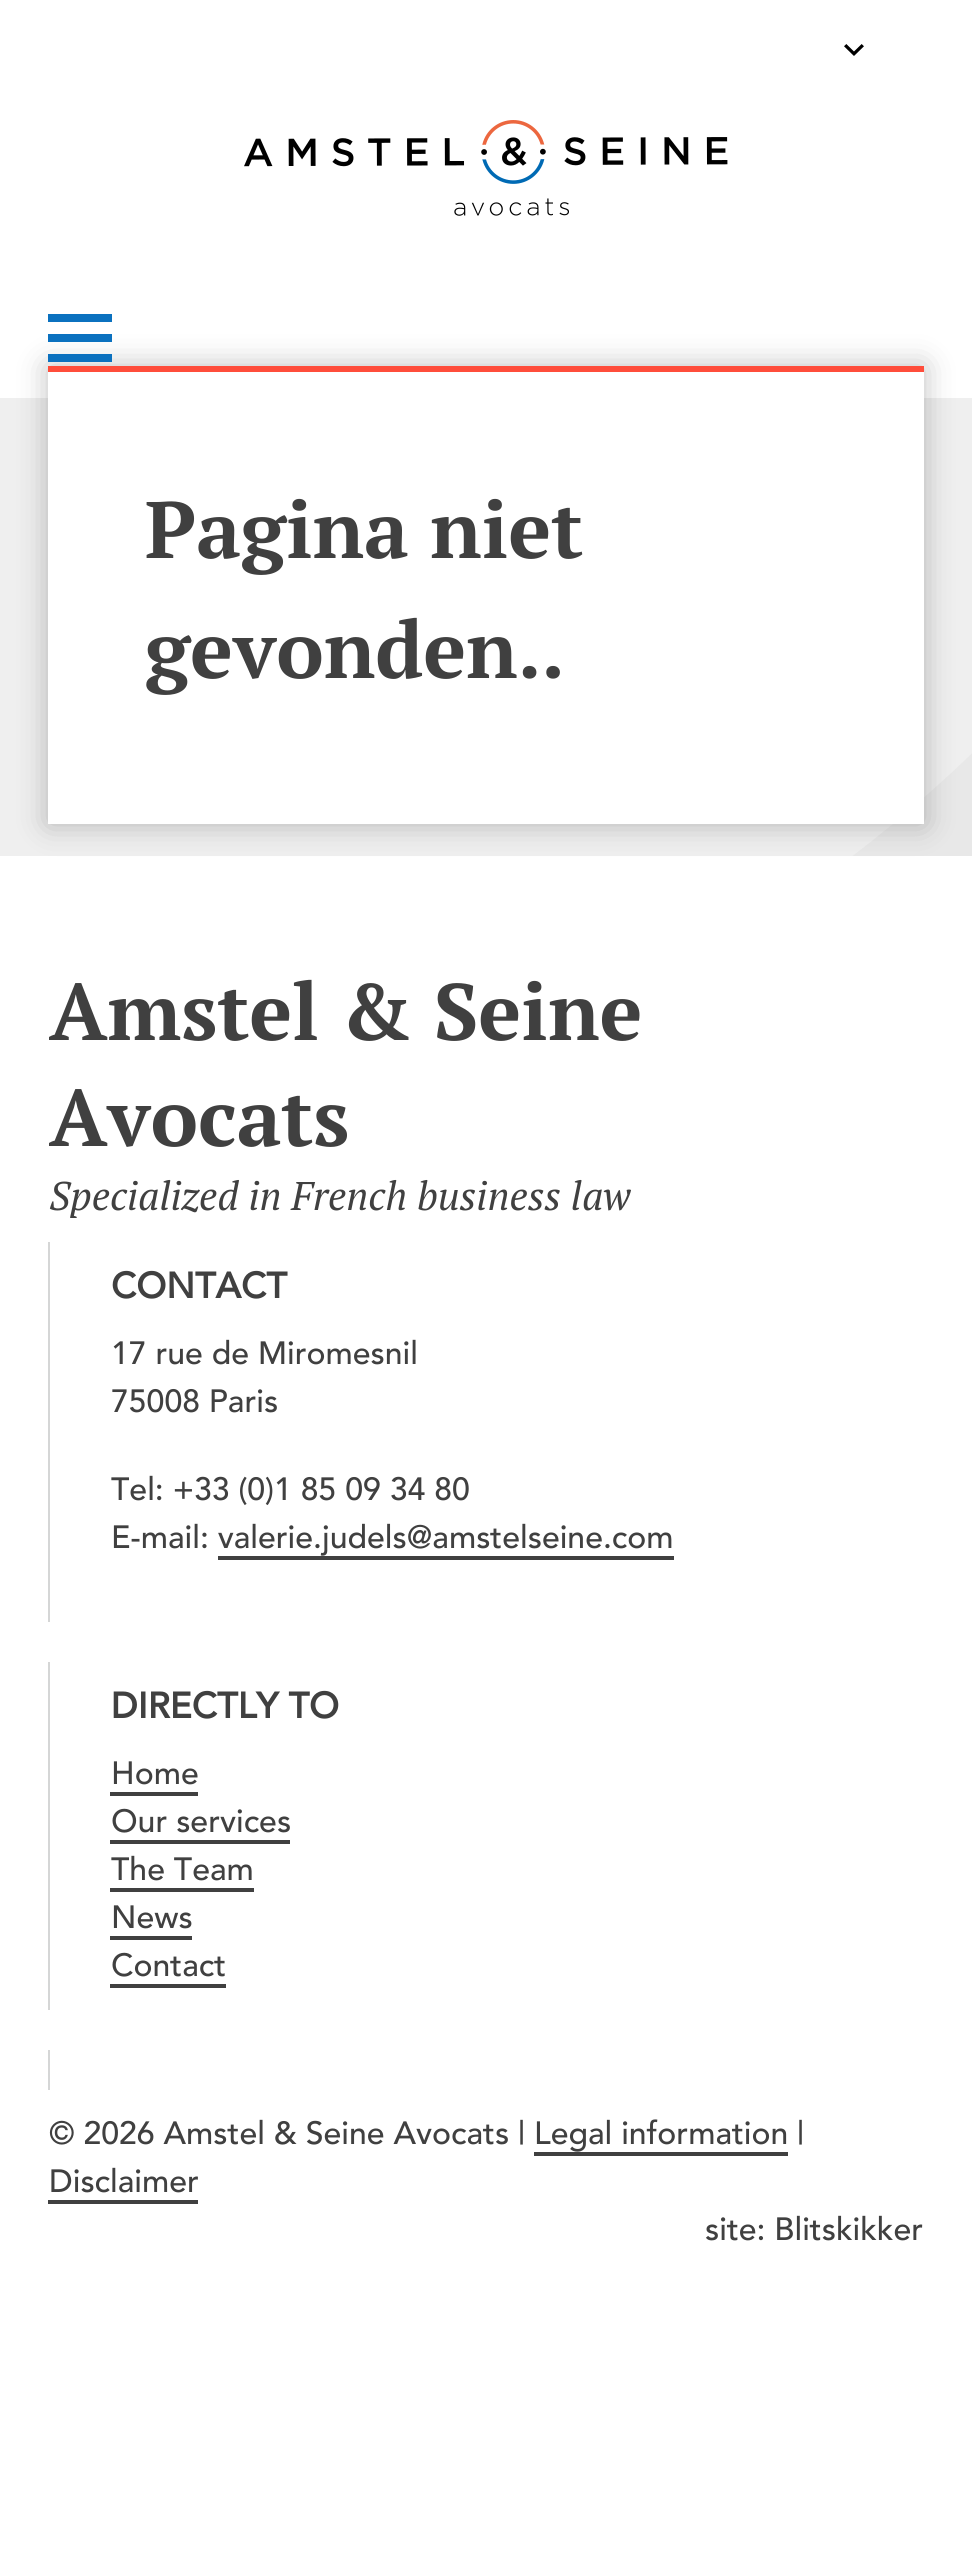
import math
import cairo

surface = cairo.ImageSurface(cairo.FORMAT_RGB24, 972, 2574)
ctx = cairo.Context(surface)
options = cairo.FontOptions()
options.set_hint_metrics(cairo.HINT_METRICS_OFF)
options.set_hint_style(cairo.HINT_STYLE_NONE)
ctx.set_font_options(options)
ctx.set_miter_limit(4)


def round_rect(x, y, w, h, r):
    ctx.new_sub_path()
    for i, (u, v) in enumerate([(x + w - r, y + h - r), (x + r, y + h - r), (x + r, y + r), (x + w - r, y + r)]):
        ctx.arc(u, v, r, i * math.pi / 2, (i + 1) * math.pi / 2)
    ctx.close_path()


def shadow(x, y, w, h, r, blur, alpha):
    ctx.push_group_with_content(cairo.CONTENT_ALPHA)
    ctx.set_operator(cairo.OPERATOR_SOURCE)
    for i in range(15, -16, -2):
        e = blur * i / 6
        if min(w, h) + 2 * e > 0:
            ctx.set_source_rgba(0, 0, 0, alpha * math.erfc((i - 1) / 8.5) / 2)
            round_rect(x - e, y - e, w + 2 * e, h + 2 * e, max(0, min(r + e + blur * .6, min(w, h) / 2 + e)))
            ctx.fill()
    ctx.mask(ctx.pop_group())


def picture(path, x, y, w, h):
    ctx.save()
    ctx.set_source_surface(cairo.ImageSurface.create_from_png(path), x, y)
    ctx.rectangle(x, y, w, h)
    ctx.fill()
    ctx.restore()


ctx.set_source_rgb(1, 1, 1)
ctx.paint()
picture("img1.png", 844, 44, 20, 12)
picture("img2.png", 244, 120, 484, 96)
ctx.set_source_rgb(0.937, 0.937, 0.937)
ctx.rectangle(0, 398, 972, 458)
ctx.fill()
picture("img3.png", 852, 753, 120, 103)
ctx.set_source_rgb(0, 0, 0)
shadow(48, 366, 876, 458, 0, 15, 0.25)
ctx.set_source_rgb(0.043, 0.443, 0.749)
ctx.rectangle(48, 334, 64, 8)
ctx.fill()
ctx.rectangle(48, 314, 64, 8)
ctx.fill()
ctx.rectangle(48, 354, 64, 8)
ctx.fill()
ctx.set_source_rgb(1, 1, 1)
ctx.rectangle(48, 372, 876, 452)
ctx.fill()
ctx.set_source_rgb(1, 0.302, 0.231)
ctx.rectangle(48, 366, 876, 6)
ctx.fill()
ctx.select_font_face("PT Serif", cairo.FONT_SLANT_NORMAL, cairo.FONT_WEIGHT_BOLD)
ctx.set_font_size(80)
ctx.set_source_rgb(0.251, 0.251, 0.251)
ctx.move_to(145, 558)
ctx.show_text("Pagina niet")
ctx.move_to(145, 678)
ctx.show_text("gevonden..")
ctx.move_to(49, 1040)
ctx.show_text("Amstel & Seine")
ctx.move_to(49, 1146)
ctx.show_text("Avocats")
ctx.select_font_face("PT Serif", cairo.FONT_SLANT_ITALIC)
ctx.set_font_size(40)
ctx.move_to(49, 1210)
ctx.show_text("Specialized in French business law")
ctx.set_source_rgb(0.835, 0.839, 0.839)
ctx.rectangle(48, 1242, 2, 380)
ctx.fill()
ctx.select_font_face("Avenir", cairo.FONT_SLANT_NORMAL, cairo.FONT_WEIGHT_BOLD)
ctx.set_font_size(36)
ctx.set_source_rgb(0.251, 0.251, 0.251)
ctx.move_to(111, 1298)
ctx.show_text("CONTACT")
ctx.select_font_face("Avenir Medium")
ctx.set_font_size(32)
ctx.move_to(111, 1364)
ctx.show_text("17 rue de Miromesnil")
ctx.move_to(111, 1412)
ctx.show_text("75008 Paris")
ctx.move_to(111, 1500)
ctx.show_text("Tel: +33 (0)1 85 09 34 80")
ctx.move_to(111, 1548)
ctx.show_text("E-mail: valerie.judels@amstelseine.com")
ctx.rectangle(218, 1556, 456, 4)
ctx.fill()
ctx.set_source_rgb(0.835, 0.839, 0.839)
ctx.rectangle(48, 1662, 2, 348)
ctx.fill()
ctx.select_font_face("Avenir", cairo.FONT_SLANT_NORMAL, cairo.FONT_WEIGHT_BOLD)
ctx.set_font_size(36)
ctx.set_source_rgb(0.251, 0.251, 0.251)
ctx.move_to(111, 1718)
ctx.show_text("DIRECTLY TO")
ctx.select_font_face("Avenir Medium")
ctx.set_font_size(32)
ctx.move_to(111, 1784)
ctx.show_text("Home")
ctx.rectangle(110, 1792, 88, 4)
ctx.fill()
ctx.move_to(111, 1832)
ctx.show_text("Our services")
ctx.rectangle(110, 1840, 180, 4)
ctx.fill()
ctx.move_to(111, 1880)
ctx.show_text("The Team")
ctx.rectangle(110, 1888, 144, 4)
ctx.fill()
ctx.move_to(111, 1928)
ctx.show_text("News")
ctx.rectangle(110, 1936, 82, 4)
ctx.fill()
ctx.move_to(111, 1976)
ctx.show_text("Contact")
ctx.rectangle(110, 1984, 116, 4)
ctx.fill()
ctx.set_source_rgb(0.835, 0.839, 0.839)
ctx.rectangle(48, 2050, 2, 40)
ctx.fill()
ctx.set_source_rgb(0.251, 0.251, 0.251)
ctx.move_to(49, 2144)
ctx.show_text("© 2026 Amstel & Seine Avocats | Legal information")
ctx.move_to(797, 2144)
ctx.show_text("|")
ctx.rectangle(534, 2152, 254, 4)
ctx.fill()
ctx.move_to(49, 2192)
ctx.show_text("Disclaimer")
ctx.rectangle(48, 2200, 150, 4)
ctx.fill()
ctx.move_to(705, 2240)
ctx.show_text("site: Blitskikker")
surface.write_to_png("page.png")
